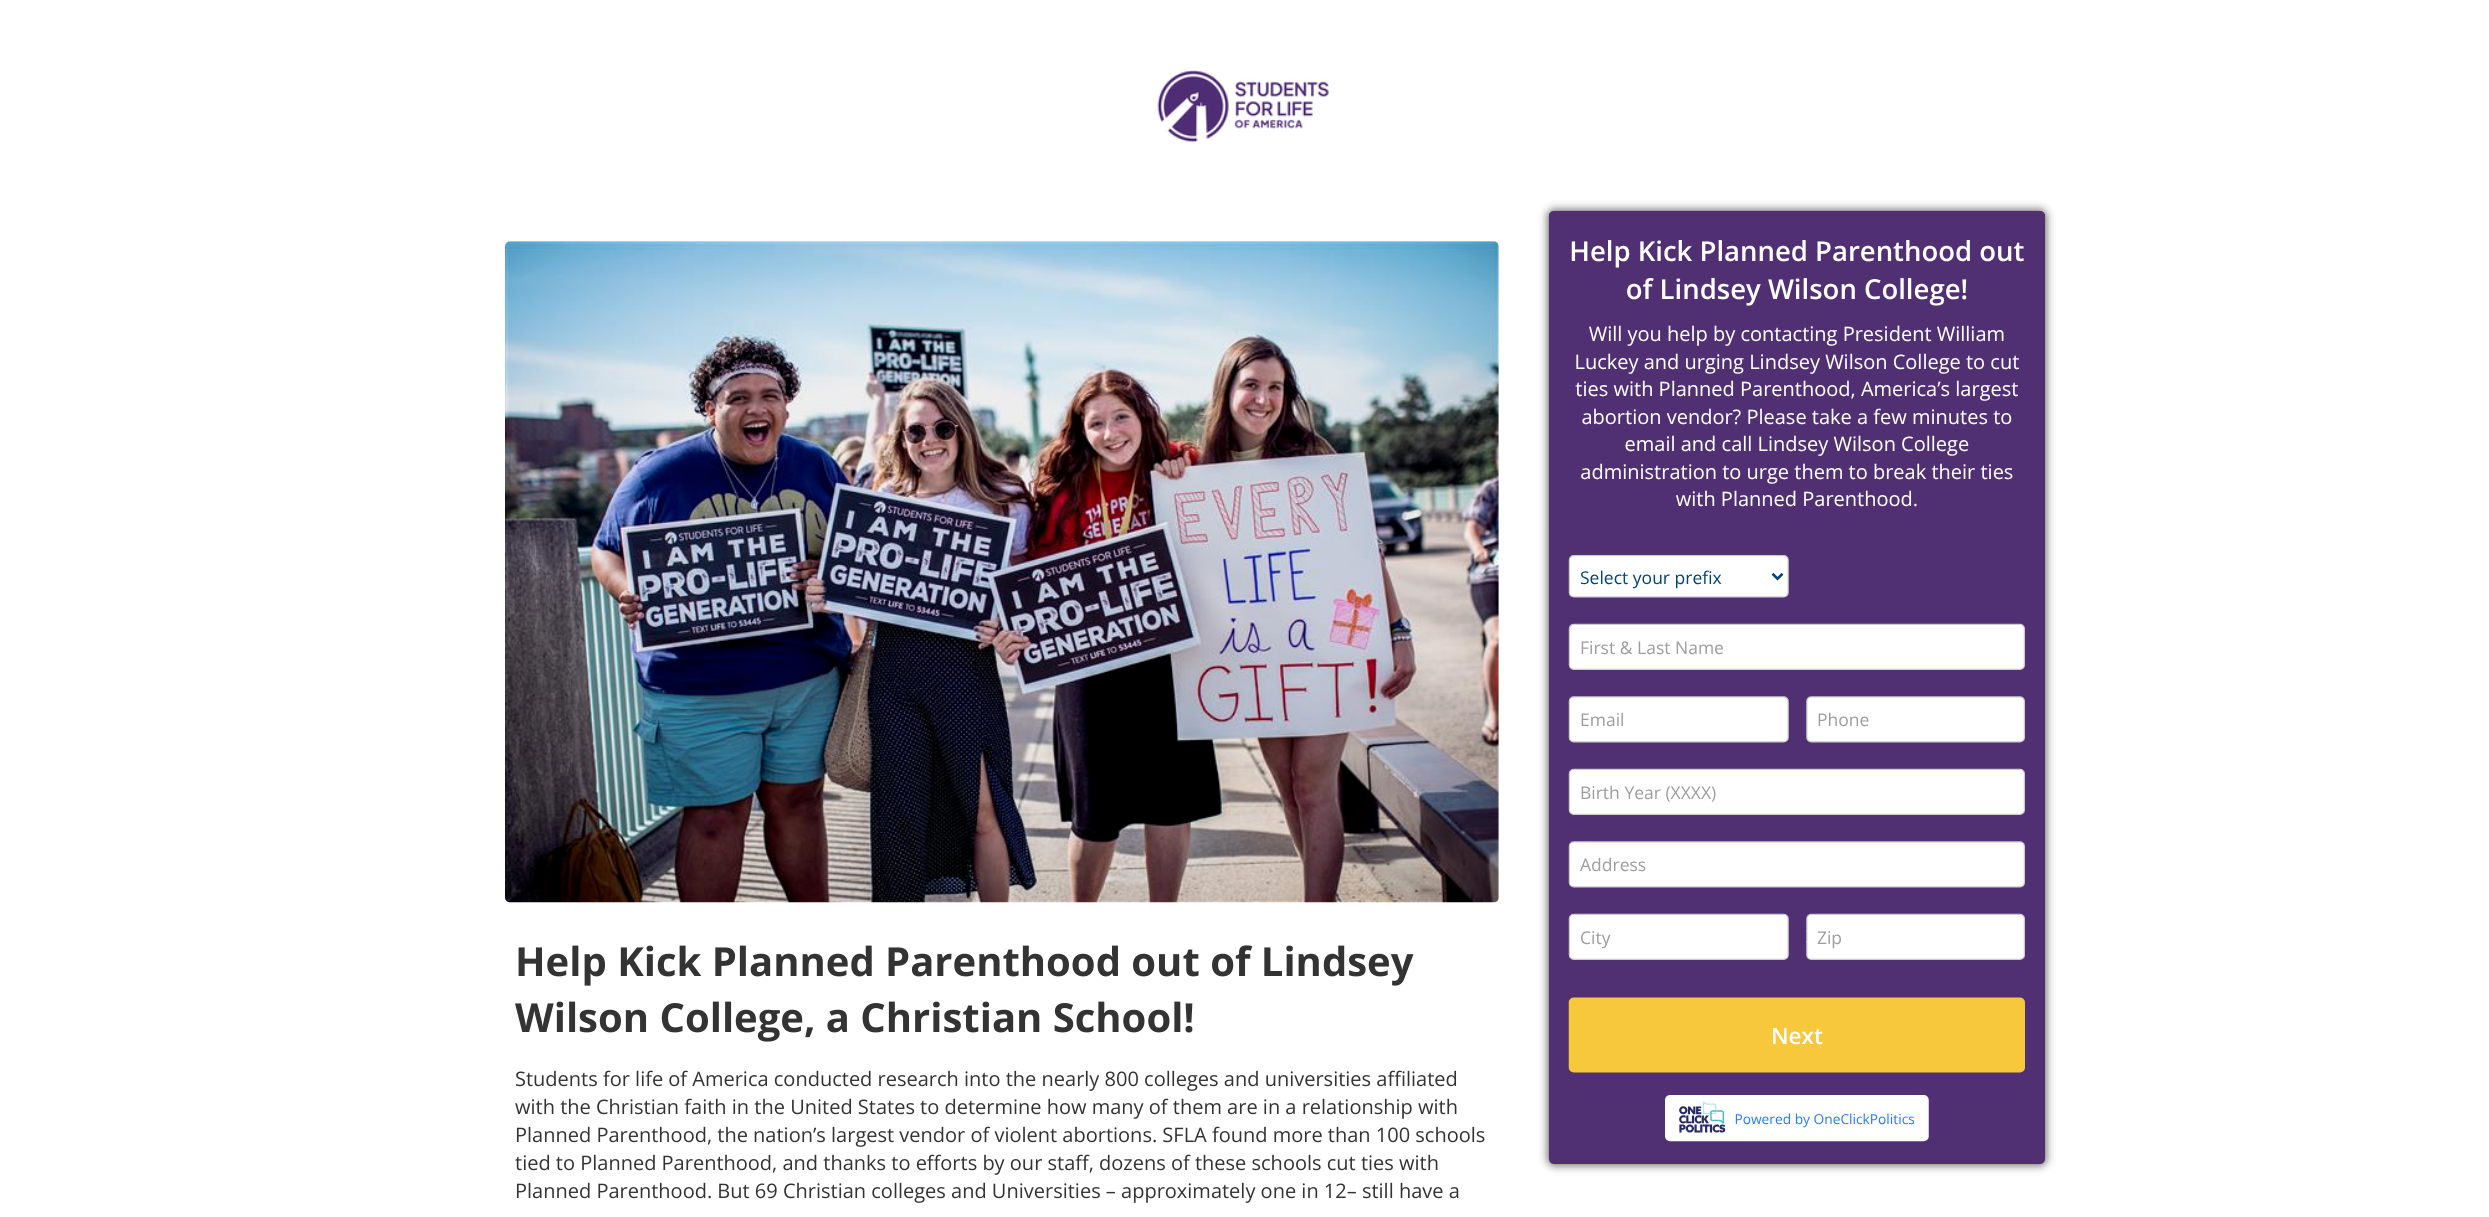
import math
import cairo

surface = cairo.ImageSurface(cairo.FORMAT_RGB24, 2489, 1217)
ctx = cairo.Context(surface)
options = cairo.FontOptions()
options.set_hint_metrics(cairo.HINT_METRICS_OFF)
options.set_hint_style(cairo.HINT_STYLE_NONE)
ctx.set_font_options(options)
ctx.set_miter_limit(4)


def round_rect(x, y, w, h, r):
    ctx.new_sub_path()
    for i, (u, v) in enumerate([(x + w - r, y + h - r), (x + r, y + h - r), (x + r, y + r), (x + w - r, y + r)]):
        ctx.arc(u, v, r, i * math.pi / 2, (i + 1) * math.pi / 2)
    ctx.close_path()


def shadow(x, y, w, h, r, blur, alpha):
    ctx.push_group_with_content(cairo.CONTENT_ALPHA)
    ctx.set_operator(cairo.OPERATOR_SOURCE)
    for i in range(15, -16, -2):
        e = blur * i / 6
        if min(w, h) + 2 * e > 0:
            ctx.set_source_rgba(0, 0, 0, alpha * math.erfc((i - 1) / 8.5) / 2)
            round_rect(x - e, y - e, w + 2 * e, h + 2 * e, max(0, min(r + e + blur * .6, min(w, h) / 2 + e)))
            ctx.fill()
    ctx.mask(ctx.pop_group())


def picture(path, x, y, w, h):
    ctx.save()
    ctx.set_source_surface(cairo.ImageSurface.create_from_png(path), x, y)
    ctx.rectangle(x, y, w, h)
    ctx.fill()
    ctx.restore()


ctx.set_source_rgb(1, 1, 1)
ctx.paint()
picture("img1.png", 1157, 70, 172, 73)
picture("img2.png", 505, 241, 994, 662)
ctx.select_font_face("Open Sans", cairo.FONT_SLANT_NORMAL, cairo.FONT_WEIGHT_BOLD)
ctx.set_font_size(40)
ctx.set_source_rgb(0.2, 0.2, 0.2)
ctx.move_to(515, 976)
ctx.show_text("Help Kick Planned Parenthood out of Lindsey")
ctx.move_to(515, 1032)
ctx.show_text("Wilson College, a Christian School!")
ctx.select_font_face("Open Sans")
ctx.set_font_size(20)
ctx.move_to(515, 1086)
ctx.show_text("Students for life of America conducted research into the nearly 800 colleges and universities affiliated")
ctx.move_to(515, 1114)
ctx.show_text("with the Christian faith in the United States to determine how many of them are in a relationship with")
ctx.move_to(515, 1142)
ctx.show_text("Planned Parenthood, the nation’s largest vendor of violent abortions. SFLA found more than 100 schools")
ctx.move_to(515, 1170)
ctx.show_text("tied to Planned Parenthood, and thanks to efforts by our staff, dozens of these schools cut ties with")
ctx.move_to(515, 1198)
ctx.show_text("Planned Parenthood. But 69 Christian colleges and Universities – approximately one in 12– still have a")
ctx.set_source_rgb(0, 0, 0)
shadow(1549, 211, 496, 953, 5, 5, 0.75)
ctx.set_source_rgb(0.314, 0.188, 0.447)
round_rect(1549, 211, 496, 953, 5)
ctx.fill()
picture("img3.png", 1548, 211, 497, 931)
surface.write_to_png("page.png")
